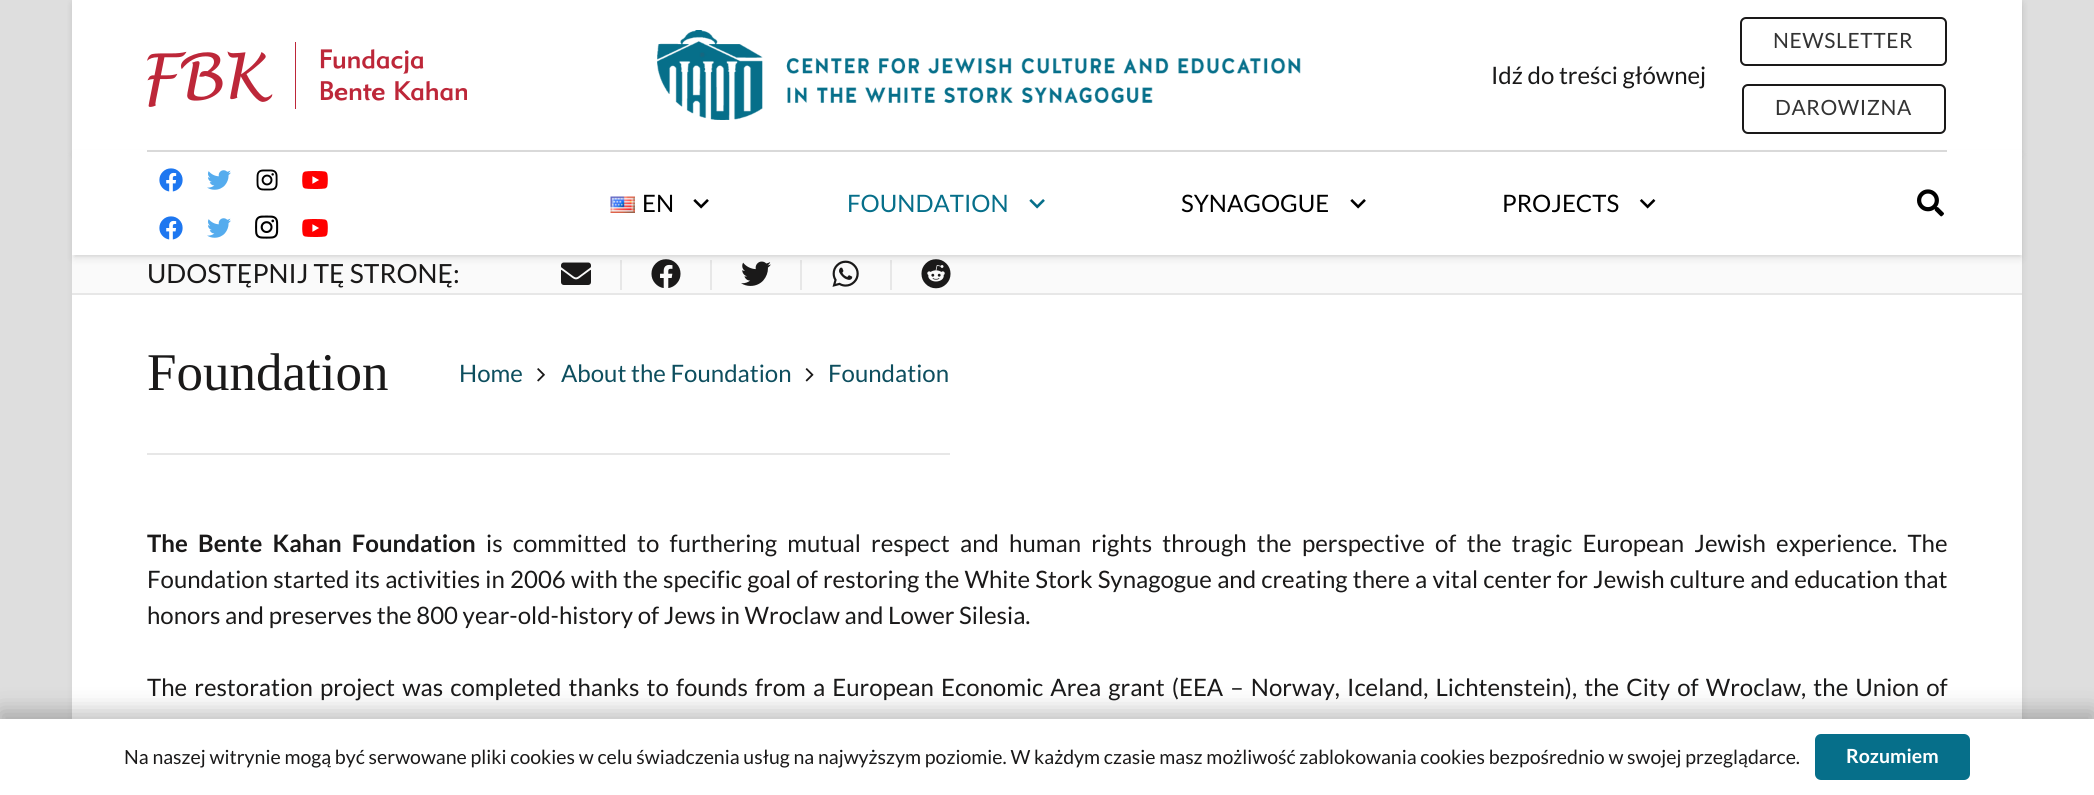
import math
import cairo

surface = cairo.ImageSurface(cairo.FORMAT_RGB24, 2094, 795)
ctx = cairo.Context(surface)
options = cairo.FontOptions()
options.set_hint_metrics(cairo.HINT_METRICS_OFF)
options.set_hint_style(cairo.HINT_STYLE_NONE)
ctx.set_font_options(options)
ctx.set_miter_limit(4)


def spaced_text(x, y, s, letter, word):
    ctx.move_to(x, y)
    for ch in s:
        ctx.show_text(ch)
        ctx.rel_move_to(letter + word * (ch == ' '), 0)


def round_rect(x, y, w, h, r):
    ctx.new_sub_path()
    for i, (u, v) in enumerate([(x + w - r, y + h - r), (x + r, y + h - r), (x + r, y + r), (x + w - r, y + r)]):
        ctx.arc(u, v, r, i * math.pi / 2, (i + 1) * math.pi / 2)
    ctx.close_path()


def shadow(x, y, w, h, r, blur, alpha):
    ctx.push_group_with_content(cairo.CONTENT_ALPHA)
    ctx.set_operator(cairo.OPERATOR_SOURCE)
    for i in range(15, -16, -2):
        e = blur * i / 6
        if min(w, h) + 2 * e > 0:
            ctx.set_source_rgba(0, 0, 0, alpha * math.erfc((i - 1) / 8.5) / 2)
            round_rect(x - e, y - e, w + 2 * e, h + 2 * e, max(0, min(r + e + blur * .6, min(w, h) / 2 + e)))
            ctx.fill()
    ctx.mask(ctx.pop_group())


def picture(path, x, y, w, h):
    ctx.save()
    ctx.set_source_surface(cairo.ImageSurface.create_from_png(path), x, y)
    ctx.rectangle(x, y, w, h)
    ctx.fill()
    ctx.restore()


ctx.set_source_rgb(0.871, 0.871, 0.871)
ctx.paint()
ctx.set_source_rgb(0, 0, 0)
shadow(74, 2, 1947, 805, 0, 4, 0.1)
ctx.set_source_rgb(1, 1, 1)
ctx.rectangle(72, 295, 1950, 424)
ctx.fill()
ctx.set_source_rgb(0, 0, 0)
shadow(74, 6, 1947, 147, 0, 4, 0.1)
ctx.set_source_rgb(1, 1, 1)
ctx.rectangle(72, 0, 1950, 150)
ctx.fill()
picture("img1.png", 147, 42, 320, 67)
picture("img2.png", 657, 30, 644, 90)
ctx.select_font_face("Lato")
ctx.set_font_size(24)
ctx.set_source_rgb(0.102, 0.098, 0.098)
ctx.move_to(1491, 84)
ctx.show_text("Idź do treści głównej")
round_rect(1741, 18, 205, 47, 5)
ctx.stroke()
ctx.set_font_size(21)
ctx.set_source_rgb(0.2, 0.2, 0.2)
spaced_text(1773, 48, "NEWSLETTER", 0.6, 0)
round_rect(1743, 85, 202, 48, 5)
ctx.set_source_rgb(0.102, 0.098, 0.098)
ctx.stroke()
ctx.set_source_rgb(0.2, 0.2, 0.2)
spaced_text(1775, 115, "DAROWIZNA", 0.6, 0)
ctx.set_source_rgb(0.98, 0.98, 0.98)
ctx.rectangle(72, 255, 1950, 38)
ctx.fill()
ctx.set_source_rgb(0.906, 0.906, 0.906)
ctx.rectangle(620, 260, 2, 30)
ctx.fill()
ctx.rectangle(710, 260, 2, 30)
ctx.fill()
picture("img14.png", 651, 259, 30, 29)
ctx.rectangle(800, 260, 2, 30)
ctx.fill()
ctx.rectangle(890, 260, 2, 30)
ctx.fill()
picture("img16.png", 832, 260, 27, 27)
picture("img17.png", 921, 259, 30, 30)
ctx.set_source_rgb(0, 0, 0)
shadow(74, 155, 1947, 102, 0, 1, 0.05)
picture("img13.png", 561, 262, 30, 23)
picture("img15.png", 741, 261, 30, 25)
shadow(74, 156, 1947, 102, 0, 4, 0.1)
ctx.set_source_rgb(1, 1, 1)
ctx.rectangle(72, 150, 1950, 105)
ctx.fill()
ctx.set_source_rgb(0.851, 0.851, 0.851)
ctx.rectangle(147, 150, 1800, 2)
ctx.fill()
picture("img3.png", 159, 168, 24, 24)
picture("img3.png", 159, 216, 24, 24)
picture("img4.png", 207, 170, 24, 20)
picture("img4.png", 207, 218, 24, 20)
picture("img5.png", 256, 169, 22, 22)
picture("img6.png", 255, 215, 24, 24)
picture("img7.png", 302, 171, 26, 18)
picture("img7.png", 302, 219, 26, 18)
picture("img8.png", 610, 196, 25, 17)
ctx.set_font_size(24)
ctx.set_source_rgb(0, 0, 0)
ctx.move_to(642, 212)
ctx.show_text("EN")
picture("img9.png", 693, 199, 16, 10)
ctx.set_source_rgb(0.024, 0.435, 0.541)
ctx.move_to(847, 212)
ctx.show_text("FOUNDATION")
picture("img10.png", 1029, 199, 16, 10)
ctx.set_source_rgb(0, 0, 0)
ctx.move_to(1181, 212)
ctx.show_text("SYNAGOGUE")
picture("img9.png", 1350, 199, 16, 10)
ctx.move_to(1502, 212)
ctx.show_text("PROJECTS")
picture("img11.png", 1639, 199, 17, 10)
picture("img12.png", 1917, 189, 27, 28)
ctx.set_source_rgb(0.906, 0.906, 0.906)
ctx.rectangle(72, 293, 1950, 2)
ctx.fill()
ctx.set_font_size(26.4)
ctx.set_source_rgb(0.102, 0.098, 0.098)
ctx.move_to(147, 283)
ctx.show_text("UDOSTĘPNIJ TĘ STRONĘ:")
ctx.select_font_face("Liberation Serif")
ctx.set_font_size(53)
ctx.move_to(147, 390)
ctx.show_text("Foundation")
ctx.select_font_face("Lato")
ctx.set_font_size(24)
ctx.set_source_rgb(0.051, 0.306, 0.369)
ctx.move_to(459, 382)
ctx.show_text("Home")
picture("img18.png", 537, 368, 8, 14)
ctx.move_to(561, 382)
ctx.show_text("About the Foundation")
picture("img19.png", 805, 368, 9, 14)
ctx.move_to(828, 382)
ctx.show_text("Foundation")
ctx.set_source_rgb(0.906, 0.906, 0.906)
ctx.rectangle(147, 453, 803, 2)
ctx.fill()
ctx.select_font_face("Lato", cairo.FONT_SLANT_NORMAL, cairo.FONT_WEIGHT_BOLD)
ctx.set_source_rgb(0.102, 0.098, 0.098)
spaced_text(147, 552, "The Bente Kahan Foundation", 0, 5.6)
ctx.select_font_face("Lato")
spaced_text(486, 552, "is committed to furthering mutual respect and human rights through the perspective of the tragic European Jewish experience. The", 0, 5.6)
spaced_text(147, 588, "Foundation started its activities in 2006 with the specific goal of restoring the White Stork Synagogue and creating there a vital center for Jewish culture and education that", 0, 0.55)
ctx.move_to(147, 624)
ctx.show_text("honors and preserves the 800 year-old-history of Jews in Wroclaw and Lower Silesia.")
spaced_text(147, 696, "The restoration project was completed thanks to founds from a European Economic Area grant (EEA – Norway, Iceland, Lichtenstein), the City of Wroclaw, the Union of", 0, 2.5)
ctx.set_source_rgb(0, 0, 0)
shadow(0, 711, 2094, 77, 0, 11, 0.25)
ctx.set_source_rgb(1, 1, 1)
ctx.rectangle(0, 719, 2094, 76)
ctx.fill()
ctx.set_font_size(19.5)
ctx.set_source_rgb(0.102, 0.098, 0.098)
ctx.move_to(124, 764)
ctx.show_text("Na naszej witrynie mogą być serwowane pliki cookies w celu świadczenia usług na najwyższym poziomie. W każdym czasie masz możliwość zablokowania cookies bezpośrednio w swojej przeglądarce.")
ctx.set_source_rgb(0.024, 0.435, 0.541)
round_rect(1815, 734, 155, 46, 6)
ctx.fill()
ctx.select_font_face("Lato", cairo.FONT_SLANT_NORMAL, cairo.FONT_WEIGHT_BOLD)
ctx.set_source_rgb(1, 1, 1)
ctx.move_to(1846, 763)
ctx.show_text("Rozumiem")
surface.write_to_png("page.png")
